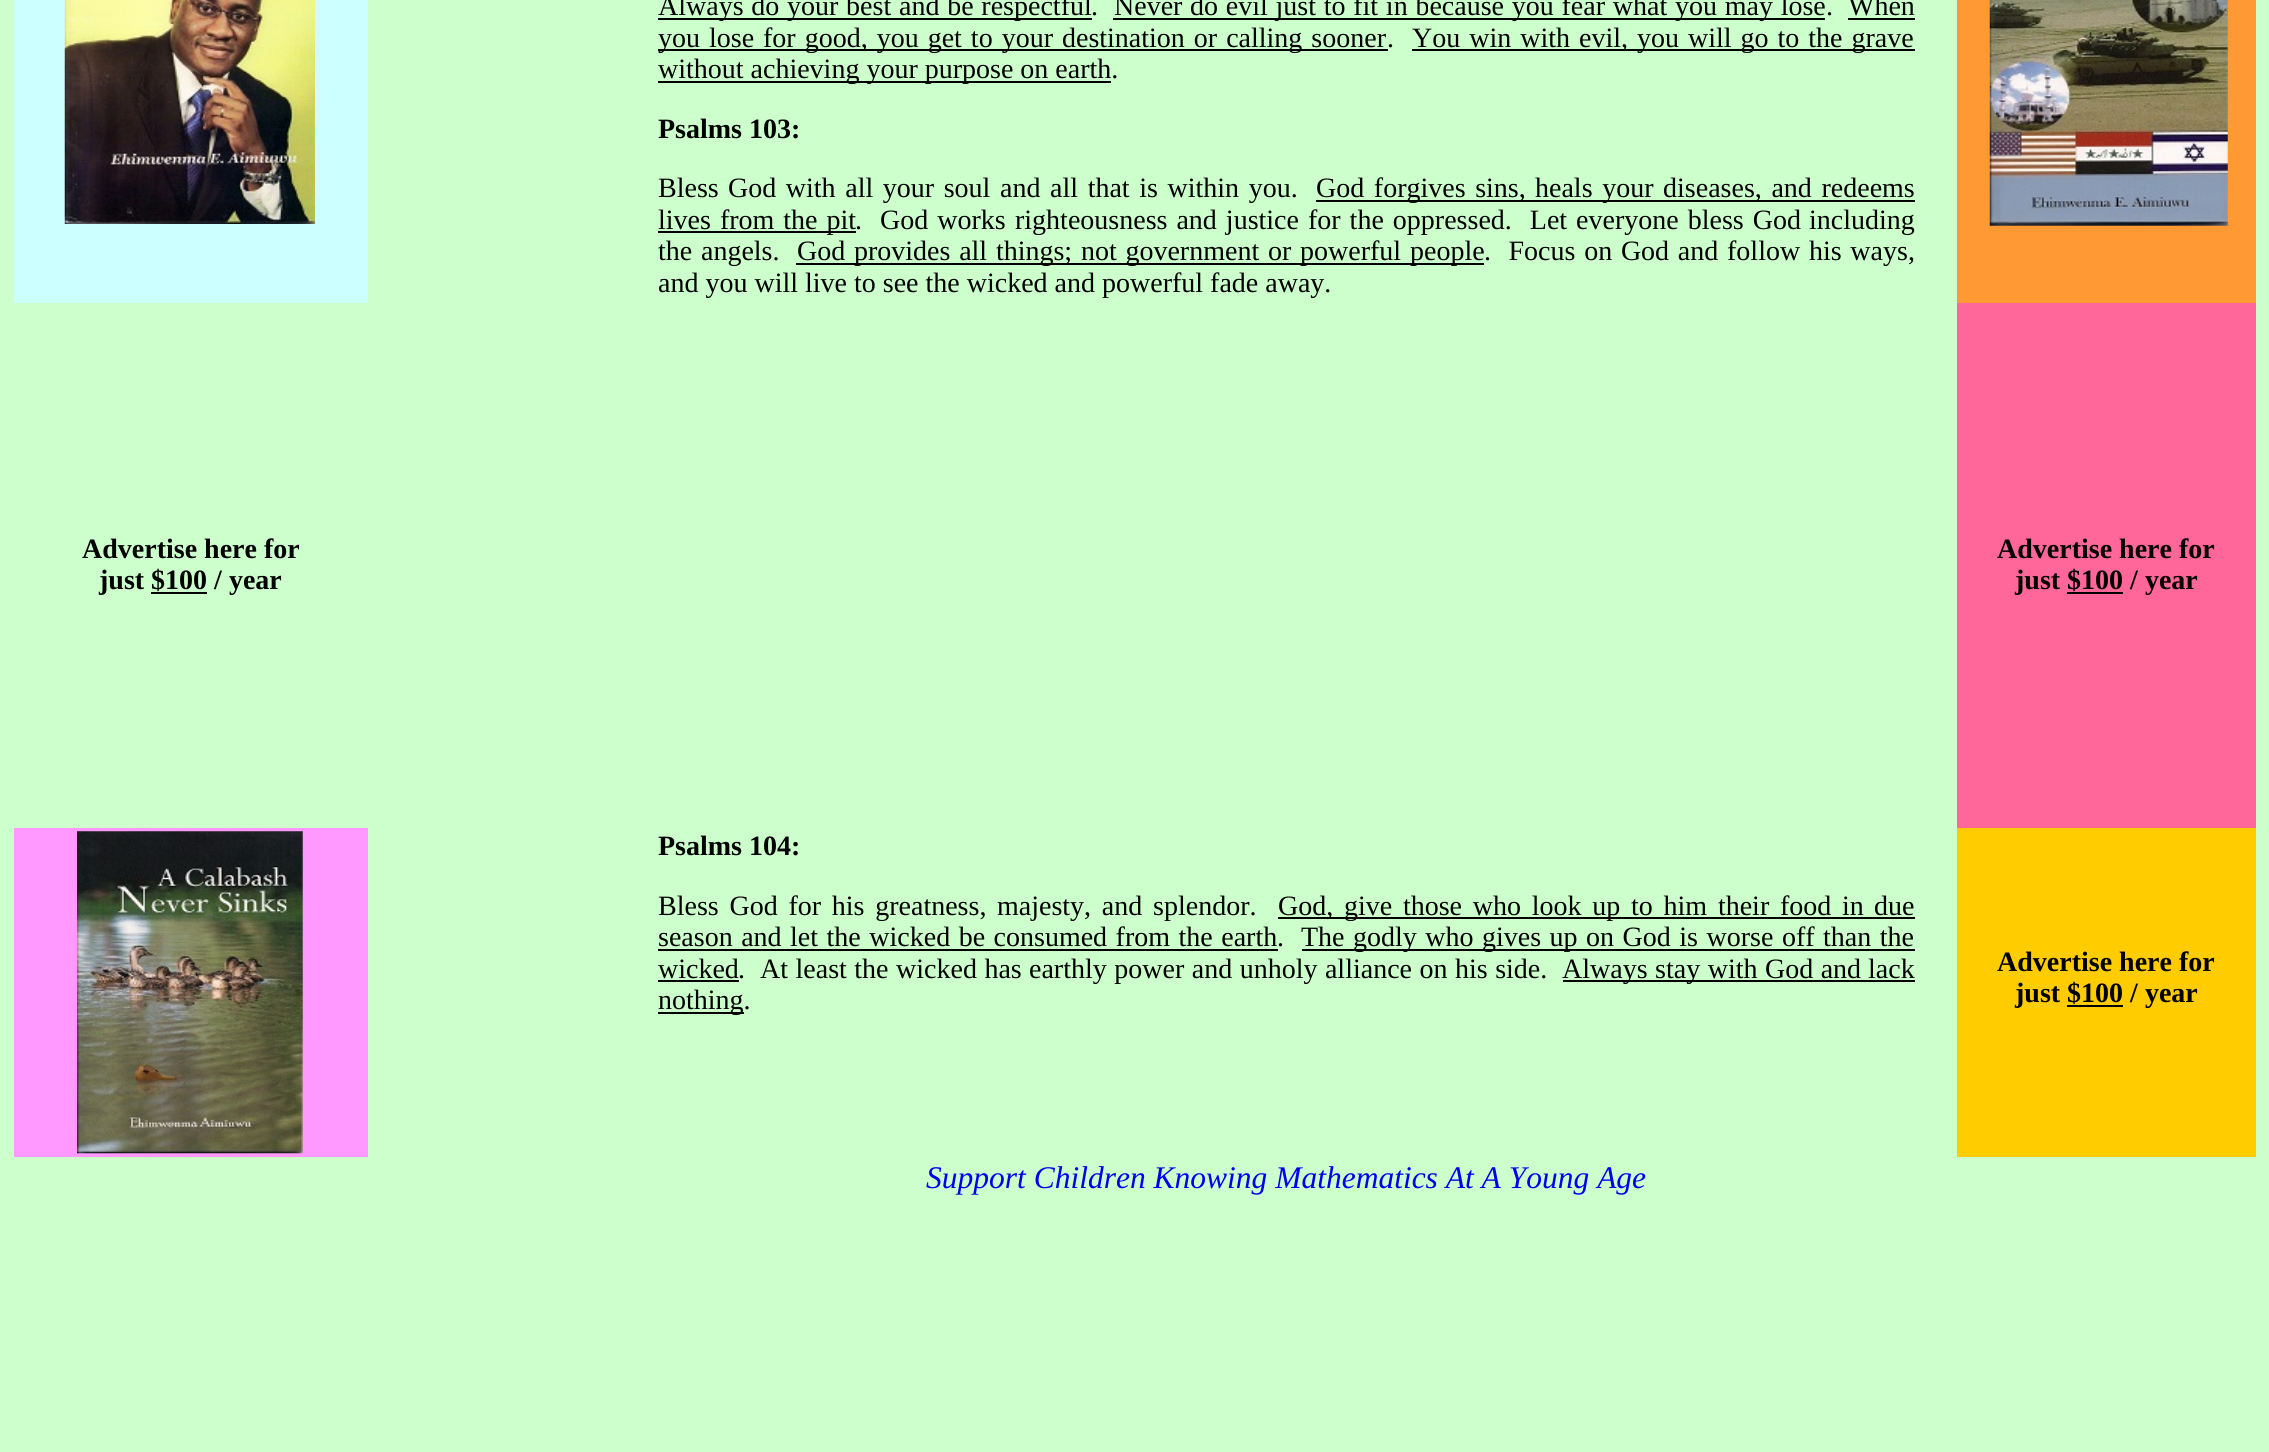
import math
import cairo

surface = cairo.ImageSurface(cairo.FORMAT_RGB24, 2269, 1452)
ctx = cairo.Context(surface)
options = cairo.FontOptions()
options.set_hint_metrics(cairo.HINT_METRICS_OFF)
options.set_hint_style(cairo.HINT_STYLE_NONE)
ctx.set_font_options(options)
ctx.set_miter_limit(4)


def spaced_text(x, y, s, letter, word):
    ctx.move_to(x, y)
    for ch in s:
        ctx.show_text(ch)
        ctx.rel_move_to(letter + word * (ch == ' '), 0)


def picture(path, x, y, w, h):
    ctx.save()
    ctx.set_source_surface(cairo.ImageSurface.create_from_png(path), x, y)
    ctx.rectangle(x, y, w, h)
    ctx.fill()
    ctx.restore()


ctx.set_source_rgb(0.8, 1, 0.8)
ctx.paint()
ctx.set_source_rgb(0.8, 1, 1)
ctx.rectangle(14, 0, 354, 303)
ctx.fill()
picture("img1.png", 64, 0, 251, 224)
ctx.set_source_rgb(0, 0, 0)
ctx.rectangle(658, 18, 434, 2)
ctx.fill()
ctx.select_font_face("Liberation Serif")
ctx.set_font_size(28)
spaced_text(658, 15, "Always do your best and be respectful", 0, 0.75)
ctx.move_to(1091, 15)
ctx.show_text(".")
ctx.move_to(1114, 15)
ctx.show_text("Never")
ctx.rectangle(1113, 18, 712, 2)
ctx.fill()
spaced_text(1190, 15, "do evil just to fit in because you fear what you may lose", 0, 0.75)
ctx.move_to(1826, 15)
ctx.show_text(".")
ctx.move_to(1848, 15)
ctx.show_text("When")
ctx.rectangle(1848, 18, 67, 2)
ctx.fill()
ctx.rectangle(658, 49, 730, 2)
ctx.fill()
spaced_text(658, 47, "you lose", 0, 2)
spaced_text(763, 47, "for good, you get to your destination or calling sooner", 0, 2)
ctx.move_to(1387, 47)
ctx.show_text(".")
spaced_text(1412, 47, "You win with", 0, 2)
ctx.rectangle(1412, 49, 503, 2)
ctx.fill()
spaced_text(1579, 47, "evil, you will go to the grave", 0, 2)
ctx.rectangle(658, 81, 453, 2)
ctx.fill()
ctx.move_to(658, 78)
ctx.show_text("without achieving your purpose on earth.")
ctx.select_font_face("Liberation Serif", cairo.FONT_SLANT_NORMAL, cairo.FONT_WEIGHT_BOLD)
ctx.move_to(658, 138)
ctx.show_text("Psalms 103:")
ctx.select_font_face("Liberation Serif")
ctx.move_to(658, 197)
ctx.show_text("Bless")
spaced_text(728, 197, "God with all your soul and all that is within you.", 0, 2.6)
ctx.rectangle(1316, 200, 599, 2)
ctx.fill()
spaced_text(1316, 197, "God forgives sins,", 0, 2.6)
spaced_text(1535, 197, "heals your diseases, and redeems", 0, 2.6)
ctx.rectangle(658, 231, 198, 2)
ctx.fill()
spaced_text(658, 229, "lives from the pit", 0, 2)
spaced_text(855, 229, ".  God works", 0, 2)
spaced_text(1015, 229, "righteousness and justice for the oppressed.  Let everyone bless God", 0, 2)
ctx.move_to(1809, 229)
ctx.show_text("including")
spaced_text(658, 260, "the angels.", 0, 1.75)
ctx.rectangle(796, 263, 688, 2)
ctx.fill()
spaced_text(797, 260, "God provides all things; not government or", 0, 1.75)
spaced_text(1300, 260, "powerful people", 0, 2)
spaced_text(1484, 260, ".  Focus on God and follow his ways,", 0, 1.75)
ctx.move_to(658, 292)
ctx.show_text("and you will live to see the wicked and powerful fade away.")
ctx.set_source_rgb(1, 0.6, 0.2)
ctx.rectangle(1957, 0, 299, 303)
ctx.fill()
picture("img2.png", 1989, 0, 239, 226)
ctx.select_font_face("Liberation Serif", cairo.FONT_SLANT_NORMAL, cairo.FONT_WEIGHT_BOLD)
ctx.set_source_rgb(0, 0, 0)
ctx.move_to(82, 558)
ctx.show_text("Advertise here for")
ctx.move_to(99, 589)
ctx.show_text("just $100 / year")
ctx.rectangle(151, 592, 56, 2)
ctx.fill()
ctx.set_source_rgb(1, 0.4, 0.6)
ctx.rectangle(1957, 303, 299, 525)
ctx.fill()
ctx.set_source_rgb(0, 0, 0)
ctx.move_to(1997, 558)
ctx.show_text("Advertise here for")
ctx.move_to(2015, 589)
ctx.show_text("just $100 / year")
ctx.rectangle(2067, 592, 56, 2)
ctx.fill()
ctx.set_source_rgb(1, 0.6, 1)
ctx.rectangle(14, 828, 354, 329)
ctx.fill()
picture("img3.png", 77, 831, 226, 323)
ctx.set_source_rgb(0, 0, 0)
ctx.move_to(658, 855)
ctx.show_text("Psalms 104:")
ctx.select_font_face("Liberation Serif")
spaced_text(658, 915, "Bless God for his greatness,", 0, 3.75)
spaced_text(997, 915, "majesty, and splendor.", 0, 3.75)
ctx.rectangle(1278, 917, 637, 2)
ctx.fill()
spaced_text(1278, 915, "God, give those who look up to him their food in", 0, 3.75)
ctx.move_to(1874, 915)
ctx.show_text("due")
spaced_text(658, 946, "season and let the wicked be consumed from the earth", 0, 1.5)
ctx.move_to(1277, 946)
ctx.show_text(".")
ctx.rectangle(658, 949, 620, 2)
ctx.fill()
ctx.rectangle(1302, 949, 613, 2)
ctx.fill()
spaced_text(1301, 946, "The godly who", 0, 1.5)
spaced_text(1482, 946, "gives up on God is worse off than the", 0, 1.5)
ctx.move_to(658, 978)
ctx.show_text("wicked")
ctx.rectangle(658, 980, 81, 2)
ctx.fill()
spaced_text(738, 978, ".  At least the wicked has", 0, 0.5)
spaced_text(1029, 978, "earthly power and unholy alliance on his side.", 0, 0.5)
ctx.rectangle(1563, 980, 352, 2)
ctx.fill()
spaced_text(1562, 978, "Always stay with God and", 0, 0.5)
ctx.move_to(1868, 978)
ctx.show_text("lack")
ctx.rectangle(658, 1012, 86, 2)
ctx.fill()
ctx.move_to(658, 1009)
ctx.show_text("nothing.")
ctx.set_source_rgb(1, 0.8, 0)
ctx.rectangle(1957, 828, 299, 329)
ctx.fill()
ctx.select_font_face("Liberation Serif", cairo.FONT_SLANT_NORMAL, cairo.FONT_WEIGHT_BOLD)
ctx.set_source_rgb(0, 0, 0)
ctx.move_to(1997, 971)
ctx.show_text("Advertise here for")
ctx.move_to(2015, 1002)
ctx.show_text("just $100 / year")
ctx.rectangle(2067, 1005, 56, 2)
ctx.fill()
ctx.select_font_face("Liberation Serif", cairo.FONT_SLANT_ITALIC)
ctx.set_font_size(31.5)
ctx.set_source_rgb(0, 0, 0.933)
ctx.move_to(926, 1188)
ctx.show_text("Support Children Knowing Mathematics At A Young Age")
surface.write_to_png("page.png")
